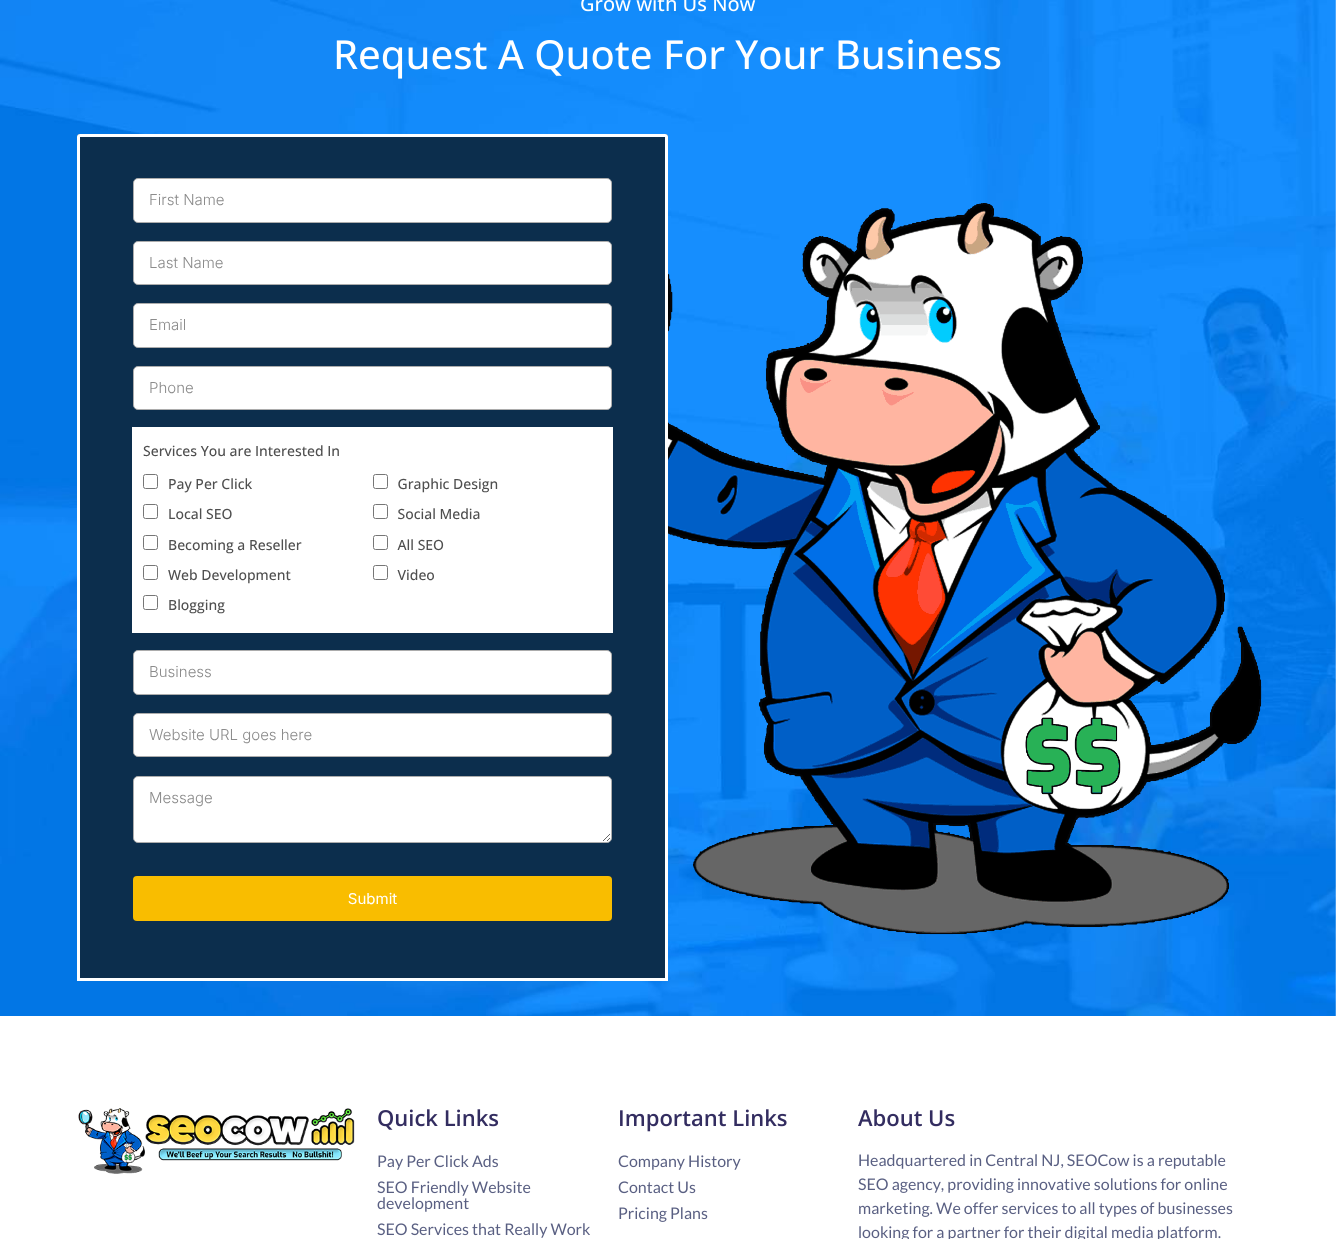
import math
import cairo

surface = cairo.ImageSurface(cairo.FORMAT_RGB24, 1336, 1239)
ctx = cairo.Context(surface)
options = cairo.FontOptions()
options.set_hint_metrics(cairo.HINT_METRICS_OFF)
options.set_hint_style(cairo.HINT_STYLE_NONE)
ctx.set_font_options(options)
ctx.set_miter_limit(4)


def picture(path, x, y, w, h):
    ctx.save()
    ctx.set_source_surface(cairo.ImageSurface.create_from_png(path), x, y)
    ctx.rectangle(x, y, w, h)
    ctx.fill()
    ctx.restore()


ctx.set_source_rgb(1, 1, 1)
ctx.paint()
picture("img1.png", 0, 0, 1336, 1016)
ctx.select_font_face("Open Sans Medium")
ctx.set_font_size(20)
ctx.set_source_rgb(1, 1, 1)
ctx.move_to(580, 11)
ctx.show_text("Grow with Us Now")
ctx.set_font_size(40)
ctx.move_to(333, 69)
ctx.show_text("Request A Quote For Your Business")
picture("img2.png", 668, 203, 594, 732)
picture("img3.png", 77, 134, 591, 847)
picture("img4.png", 78, 1108, 277, 66)
ctx.select_font_face("Open Sans SemiBold")
ctx.set_font_size(22)
ctx.set_source_rgb(0.2, 0.176, 0.376)
ctx.move_to(377, 1126)
ctx.show_text("Quick Links")
ctx.select_font_face("Lato")
ctx.set_font_size(16)
ctx.set_source_rgb(0.349, 0.373, 0.51)
ctx.move_to(377, 1167)
ctx.show_text("Pay Per Click Ads")
ctx.move_to(377, 1193)
ctx.show_text("SEO Friendly Website")
ctx.move_to(377, 1209)
ctx.show_text("development")
ctx.move_to(377, 1235)
ctx.show_text("SEO Services that Really Work")
ctx.select_font_face("Open Sans SemiBold")
ctx.set_font_size(22)
ctx.set_source_rgb(0.2, 0.176, 0.376)
ctx.move_to(618, 1126)
ctx.show_text("Important Links")
ctx.select_font_face("Lato")
ctx.set_font_size(16)
ctx.set_source_rgb(0.349, 0.373, 0.51)
ctx.move_to(618, 1167)
ctx.show_text("Company History")
ctx.move_to(618, 1193)
ctx.show_text("Contact Us")
ctx.move_to(618, 1219)
ctx.show_text("Pricing Plans")
ctx.select_font_face("Open Sans SemiBold")
ctx.set_font_size(22)
ctx.set_source_rgb(0.2, 0.176, 0.376)
ctx.move_to(858, 1126)
ctx.show_text("About Us")
ctx.select_font_face("Lato")
ctx.set_font_size(16)
ctx.set_source_rgb(0.349, 0.373, 0.51)
ctx.move_to(858, 1166)
ctx.show_text("Headquartered in Central NJ, SEOCow is a reputable")
ctx.move_to(858, 1190)
ctx.show_text("SEO agency, providing innovative solutions for online")
ctx.move_to(858, 1214)
ctx.show_text("marketing. We offer services to all types of businesses")
ctx.move_to(858, 1238)
ctx.show_text("looking for a partner for their digital media platform.")
surface.write_to_png("page.png")
